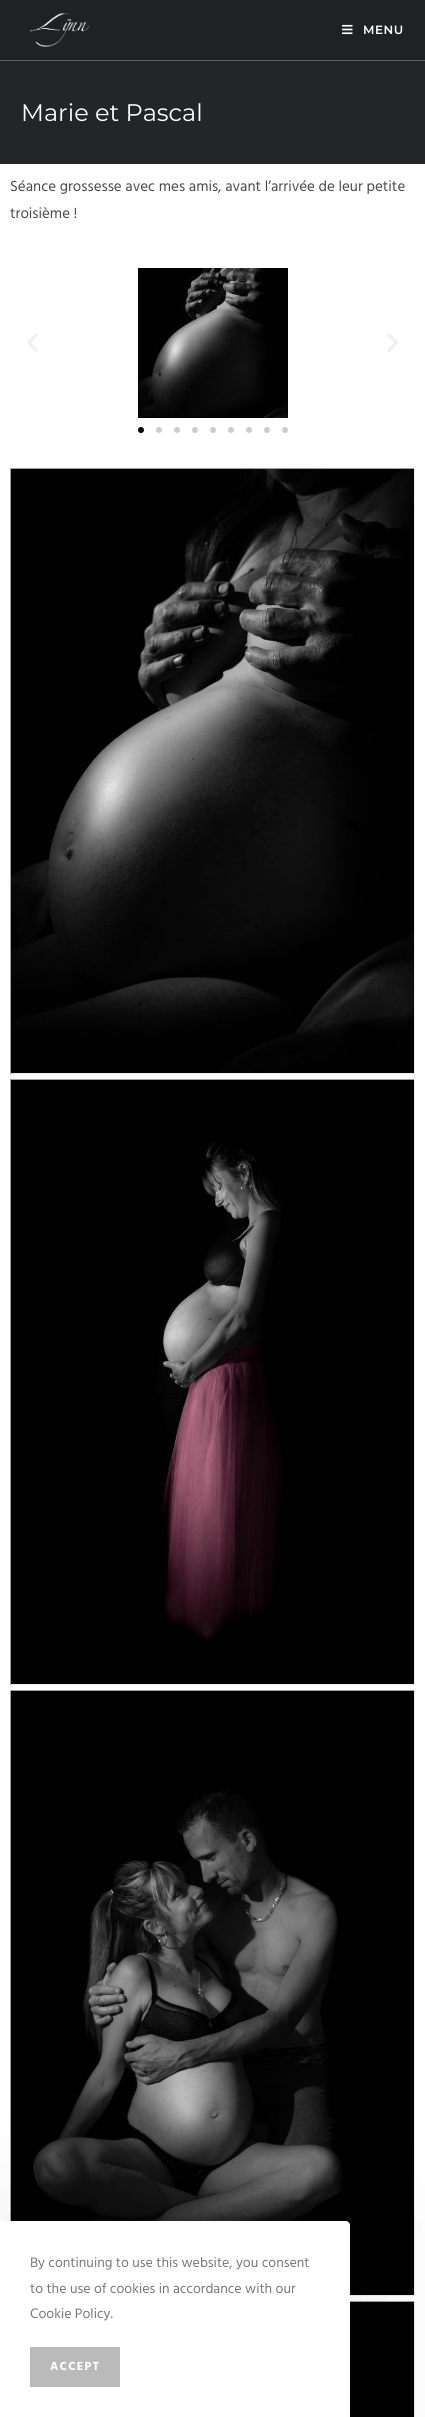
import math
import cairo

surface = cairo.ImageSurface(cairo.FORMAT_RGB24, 425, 2417)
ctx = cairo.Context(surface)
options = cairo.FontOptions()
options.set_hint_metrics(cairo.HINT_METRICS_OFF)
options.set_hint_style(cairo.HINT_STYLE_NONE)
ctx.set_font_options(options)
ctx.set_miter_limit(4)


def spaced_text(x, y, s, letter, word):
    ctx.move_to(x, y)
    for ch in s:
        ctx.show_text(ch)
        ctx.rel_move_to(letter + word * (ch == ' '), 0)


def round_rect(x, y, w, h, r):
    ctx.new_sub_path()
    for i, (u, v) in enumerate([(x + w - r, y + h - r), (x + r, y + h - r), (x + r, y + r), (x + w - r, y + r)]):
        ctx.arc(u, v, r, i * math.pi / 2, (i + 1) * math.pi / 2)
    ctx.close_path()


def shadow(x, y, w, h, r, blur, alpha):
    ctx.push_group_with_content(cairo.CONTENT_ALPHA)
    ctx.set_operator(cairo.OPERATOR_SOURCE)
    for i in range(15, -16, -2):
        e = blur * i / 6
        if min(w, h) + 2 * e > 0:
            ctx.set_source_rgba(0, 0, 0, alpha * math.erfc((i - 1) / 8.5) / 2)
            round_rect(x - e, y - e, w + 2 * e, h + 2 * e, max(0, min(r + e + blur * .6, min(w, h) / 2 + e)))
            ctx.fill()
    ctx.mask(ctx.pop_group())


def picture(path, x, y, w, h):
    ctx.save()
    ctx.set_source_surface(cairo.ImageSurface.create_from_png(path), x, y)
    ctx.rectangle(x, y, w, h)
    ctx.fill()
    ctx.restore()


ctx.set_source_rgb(1, 1, 1)
ctx.paint()
ctx.set_source_rgb(0.125, 0.129, 0.145)
ctx.rectangle(0, 0, 425, 60)
ctx.fill()
ctx.set_source_rgb(0.388, 0.392, 0.4)
ctx.rectangle(0, 60, 425, 1)
ctx.fill()
picture("img1.png", 29, 13, 61, 34)
picture("img2.png", 342, 24, 11, 11)
ctx.select_font_face("Montserrat SemiBold")
ctx.set_font_size(12)
ctx.set_source_rgb(1, 1, 1)
spaced_text(363, 34, "MENU", 0.5, 0)
ctx.set_source_rgb(0.141, 0.145, 0.161)
ctx.rectangle(0, 61, 425, 103)
ctx.fill()
ctx.select_font_face("Montserrat")
ctx.set_font_size(24)
ctx.set_source_rgb(1, 1, 1)
ctx.move_to(21, 121)
ctx.show_text("Marie et Pascal")
ctx.select_font_face("Hind")
ctx.set_font_size(15)
ctx.set_source_rgb(0.29, 0.29, 0.29)
ctx.move_to(10, 191)
ctx.show_text("Séance grossesse avec mes amis, avant l’arrivée de leur petite")
ctx.move_to(10, 218)
ctx.show_text("troisième !")
picture("img3.png", 27, 333, 11, 19)
picture("img4.png", 138, 268, 150, 150)
picture("img5.png", 387, 333, 11, 19)
ctx.set_source_rgb(0, 0, 0)
ctx.arc(141, 430, 3, 0, 2 * math.pi)
ctx.fill()
ctx.set_source_rgb(0.8, 0.8, 0.8)
ctx.arc(159, 430, 3, 0, 2 * math.pi)
ctx.fill()
ctx.arc(177, 430, 3, 0, 2 * math.pi)
ctx.fill()
ctx.arc(195, 430, 3, 0, 2 * math.pi)
ctx.fill()
ctx.arc(213, 430, 3, 0, 2 * math.pi)
ctx.fill()
ctx.arc(231, 430, 3, 0, 2 * math.pi)
ctx.fill()
ctx.arc(249, 430, 3, 0, 2 * math.pi)
ctx.fill()
ctx.arc(267, 430, 3, 0, 2 * math.pi)
ctx.fill()
ctx.arc(285, 430, 3, 0, 2 * math.pi)
ctx.fill()
ctx.set_source_rgb(0.624, 0.624, 0.624)
ctx.rectangle(10, 468, 405, 1)
ctx.fill()
ctx.set_source_rgb(0.933, 0.933, 0.933)
ctx.rectangle(414, 468, 1, 606)
ctx.fill()
ctx.rectangle(10, 1073, 405, 1)
ctx.fill()
ctx.set_source_rgb(0.624, 0.624, 0.624)
ctx.rectangle(10, 468, 1, 606)
ctx.fill()
picture("img6.png", 11, 469, 403, 604)
ctx.rectangle(10, 1079, 405, 1)
ctx.fill()
ctx.set_source_rgb(0.933, 0.933, 0.933)
ctx.rectangle(414, 1079, 1, 606)
ctx.fill()
ctx.rectangle(10, 1684, 405, 1)
ctx.fill()
ctx.set_source_rgb(0.624, 0.624, 0.624)
ctx.rectangle(10, 1079, 1, 606)
ctx.fill()
picture("img7.png", 11, 1080, 403, 604)
ctx.rectangle(10, 1690, 405, 1)
ctx.fill()
ctx.set_source_rgb(0.933, 0.933, 0.933)
ctx.rectangle(414, 1690, 1, 606)
ctx.fill()
ctx.rectangle(350, 2295, 65, 1)
ctx.fill()
ctx.set_source_rgb(0.624, 0.624, 0.624)
ctx.rectangle(10, 1690, 1, 531)
ctx.fill()
picture("img8.png", 11, 1691, 403, 604)
ctx.rectangle(350, 2301, 65, 1)
ctx.fill()
ctx.set_source_rgb(0.933, 0.933, 0.933)
ctx.rectangle(414, 2301, 1, 116)
ctx.fill()
picture("img9.png", 350, 2302, 64, 115)
ctx.set_source_rgb(0, 0, 0)
shadow(0, 2241, 350, 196, 4, 75, 0.1)
ctx.set_source_rgb(1, 1, 1)
ctx.new_path()
ctx.move_to(0, 2221)
ctx.line_to(346, 2221)
ctx.curve_to(348, 2221, 350, 2223, 350, 2225)
ctx.line_to(350, 2417)
ctx.line_to(0, 2417)
ctx.close_path()
ctx.fill()
ctx.set_font_size(14)
ctx.set_source_rgb(0.467, 0.467, 0.467)
ctx.move_to(30, 2267)
ctx.show_text("By continuing to use this website, you consent")
ctx.move_to(30, 2293)
ctx.show_text("to the use of cookies in accordance with our")
ctx.move_to(30, 2318)
ctx.show_text("Cookie Policy.")
ctx.set_source_rgb(0.729, 0.729, 0.729)
ctx.rectangle(30, 2347, 90, 40)
ctx.fill()
ctx.select_font_face("Hind", cairo.FONT_SLANT_NORMAL, cairo.FONT_WEIGHT_BOLD)
ctx.set_font_size(12)
ctx.set_source_rgb(1, 1, 1)
spaced_text(50, 2370, "ACCEPT", 1.25, 0)
surface.write_to_png("page.png")
